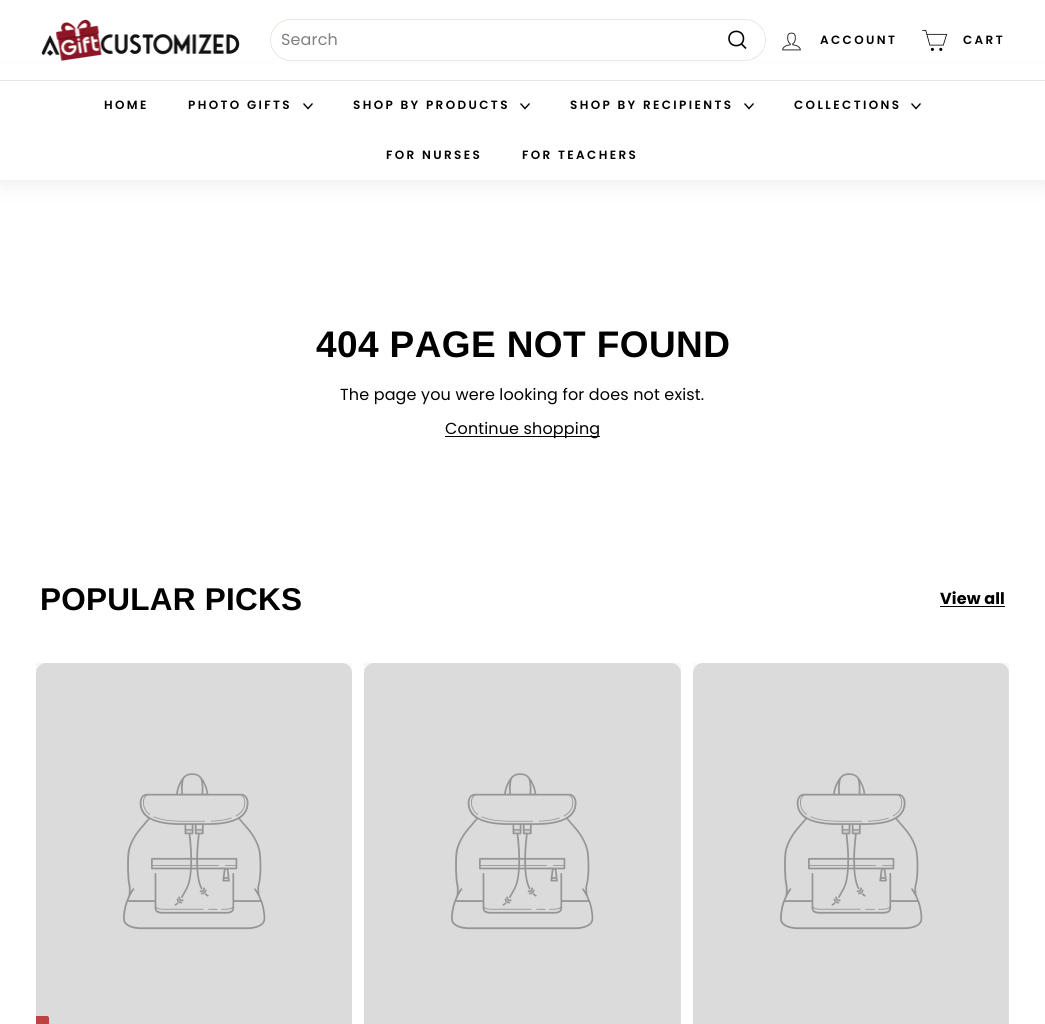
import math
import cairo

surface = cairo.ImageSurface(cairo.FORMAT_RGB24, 1045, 1024)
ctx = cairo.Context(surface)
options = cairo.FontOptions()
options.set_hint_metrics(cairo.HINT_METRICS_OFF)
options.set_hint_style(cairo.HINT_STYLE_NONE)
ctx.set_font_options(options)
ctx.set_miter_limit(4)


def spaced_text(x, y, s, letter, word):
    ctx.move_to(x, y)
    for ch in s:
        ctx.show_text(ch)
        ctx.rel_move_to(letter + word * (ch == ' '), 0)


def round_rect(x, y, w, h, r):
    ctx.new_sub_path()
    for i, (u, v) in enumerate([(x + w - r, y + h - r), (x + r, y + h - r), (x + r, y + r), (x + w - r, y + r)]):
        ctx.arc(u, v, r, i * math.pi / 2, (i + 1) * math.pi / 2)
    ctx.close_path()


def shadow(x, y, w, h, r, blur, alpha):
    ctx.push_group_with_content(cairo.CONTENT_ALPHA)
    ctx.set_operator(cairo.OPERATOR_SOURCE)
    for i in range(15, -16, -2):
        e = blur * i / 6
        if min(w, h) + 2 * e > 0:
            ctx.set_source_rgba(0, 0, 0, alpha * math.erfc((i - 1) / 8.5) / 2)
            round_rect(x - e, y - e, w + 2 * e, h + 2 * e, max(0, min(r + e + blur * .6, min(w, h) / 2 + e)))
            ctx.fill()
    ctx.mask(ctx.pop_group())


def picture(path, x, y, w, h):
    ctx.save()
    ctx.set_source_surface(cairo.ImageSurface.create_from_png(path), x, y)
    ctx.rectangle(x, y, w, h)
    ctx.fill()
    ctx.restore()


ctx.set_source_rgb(1, 1, 1)
ctx.paint()
ctx.set_source_rgb(0, 0, 0)
shadow(0, 80, 1045, 100, 0, 12.5, 0.1)
ctx.set_source_rgb(1, 1, 1)
ctx.rectangle(0, 64, 1045, 16)
ctx.fill()
picture("img1.png", 41, 19, 199, 42)
round_rect(270.5, 19.5, 495, 41, 20.5)
ctx.set_source_rgb(0.91, 0.91, 0.882)
ctx.set_line_width(1)
ctx.stroke()
ctx.select_font_face("Poppins")
ctx.set_font_size(16)
ctx.set_source_rgb(0.502, 0.502, 0.502)
spaced_text(281, 45, "Search", 0.15, 0)
ctx.new_path()
ctx.move_to(743.5, 38.5)
ctx.curve_to(743.5, 48, 729, 48, 729, 38.5)
ctx.curve_to(729, 29, 743.5, 29, 743.5, 38.5)
ctx.close_path()
ctx.move_to(746, 48.5)
ctx.line_to(741.5, 44)
ctx.set_source_rgb(0, 0, 0)
ctx.set_line_width(1.6)
ctx.stroke()
picture("img2.png", 782, 32, 19, 19)
ctx.select_font_face("Poppins SemiBold")
ctx.set_font_size(12)
spaced_text(820, 44, "ACCOUNT", 2.4, 0)
picture("img3.png", 922, 29, 26, 22)
spaced_text(963, 44, "CART", 2.4, 0)
ctx.set_source_rgb(1, 1, 1)
ctx.rectangle(0, 81, 1045, 99)
ctx.fill()
ctx.set_source_rgb(0.902, 0.902, 0.902)
ctx.rectangle(0, 80, 1045, 1)
ctx.fill()
ctx.set_source_rgb(0, 0, 0)
spaced_text(104, 109, "HOME", 2.4, 0)
spaced_text(188, 109, "PHOTO GIFTS", 2.4, 0)
ctx.new_path()
ctx.move_to(303.5, 103.5)
ctx.line_to(308, 108.5)
ctx.line_to(312.5, 103.5)
ctx.set_line_width(1.4)
ctx.stroke()
spaced_text(353, 109, "SHOP BY PRODUCTS", 2.4, 0)
ctx.new_path()
ctx.move_to(520.5, 103.5)
ctx.line_to(525, 108.5)
ctx.line_to(529.5, 103.5)
ctx.stroke()
spaced_text(570, 109, "SHOP BY RECIPIENTS", 2.4, 0)
ctx.new_path()
ctx.move_to(744.5, 103.5)
ctx.line_to(749, 108.5)
ctx.line_to(753.5, 103.5)
ctx.stroke()
spaced_text(794, 109, "COLLECTIONS", 2.4, 0)
ctx.new_path()
ctx.move_to(911.5, 103.5)
ctx.line_to(916, 108.5)
ctx.line_to(920.5, 103.5)
ctx.stroke()
spaced_text(386, 159, "FOR NURSES", 2.4, 0)
spaced_text(522, 159, "FOR TEACHERS", 2.4, 0)
ctx.select_font_face("Liberation Sans", cairo.FONT_SLANT_NORMAL, cairo.FONT_WEIGHT_BOLD)
ctx.set_font_size(37)
spaced_text(316, 357, "404 PAGE NOT FOUND", 0.4, 0)
ctx.select_font_face("Poppins")
ctx.set_font_size(16)
spaced_text(340, 400, "The page you were looking for does not exist.", 0.15, 0)
ctx.rectangle(445, 436, 155, 1)
ctx.fill()
spaced_text(445, 434, "Continue shopping", 0.15, 0)
ctx.select_font_face("Liberation Sans", cairo.FONT_SLANT_NORMAL, cairo.FONT_WEIGHT_BOLD)
ctx.set_font_size(31.5)
spaced_text(40, 610, "POPULAR PICKS", 0.25, 0)
ctx.select_font_face("Poppins", cairo.FONT_SLANT_NORMAL, cairo.FONT_WEIGHT_BOLD)
ctx.set_font_size(16)
spaced_text(940, 604, "View all", 0.15, 0)
ctx.rectangle(940, 606, 65, 1)
ctx.fill()
ctx.set_source_rgb(0.882, 0.882, 0.882)
ctx.new_path()
ctx.move_to(46, 663)
ctx.line_to(342, 663)
ctx.curve_to(347.5, 663, 352, 667.5, 352, 673)
ctx.line_to(352, 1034)
ctx.line_to(36, 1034)
ctx.line_to(36, 673)
ctx.curve_to(36, 667.5, 40.5, 663, 46, 663)
ctx.close_path()
ctx.fill()
picture("img4.png", 123, 773, 143, 157)
ctx.set_source_rgba(0, 0, 0, 0.03)
ctx.rectangle(36, 663, 316, 361)
ctx.fill()
ctx.set_source_rgb(0.729, 0.267, 0.267)
ctx.new_path()
ctx.move_to(36, 1016)
ctx.line_to(47, 1016)
ctx.curve_to(48, 1016, 49, 1017, 49, 1018)
ctx.line_to(49, 1024)
ctx.curve_to(49, 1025, 48, 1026, 47, 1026)
ctx.line_to(36, 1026)
ctx.close_path()
ctx.fill()
ctx.set_source_rgb(0.882, 0.882, 0.882)
ctx.new_path()
ctx.move_to(374, 663)
ctx.line_to(671, 663)
ctx.curve_to(676.5, 663, 681, 667.5, 681, 673)
ctx.line_to(681, 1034)
ctx.line_to(364, 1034)
ctx.line_to(364, 673)
ctx.curve_to(364, 667.5, 368.5, 663, 374, 663)
ctx.close_path()
ctx.fill()
picture("img4.png", 451, 773, 143, 157)
ctx.set_source_rgba(0, 0, 0, 0.03)
ctx.rectangle(364, 663, 317, 361)
ctx.fill()
ctx.set_source_rgb(0.882, 0.882, 0.882)
ctx.new_path()
ctx.move_to(703, 663)
ctx.line_to(999, 663)
ctx.curve_to(1004.5, 663, 1009, 667.5, 1009, 673)
ctx.line_to(1009, 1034)
ctx.line_to(693, 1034)
ctx.line_to(693, 673)
ctx.curve_to(693, 667.5, 697.5, 663, 703, 663)
ctx.close_path()
ctx.fill()
picture("img4.png", 780, 773, 143, 157)
ctx.set_source_rgba(0, 0, 0, 0.03)
ctx.rectangle(693, 663, 316, 361)
ctx.fill()
surface.write_to_png("page.png")
